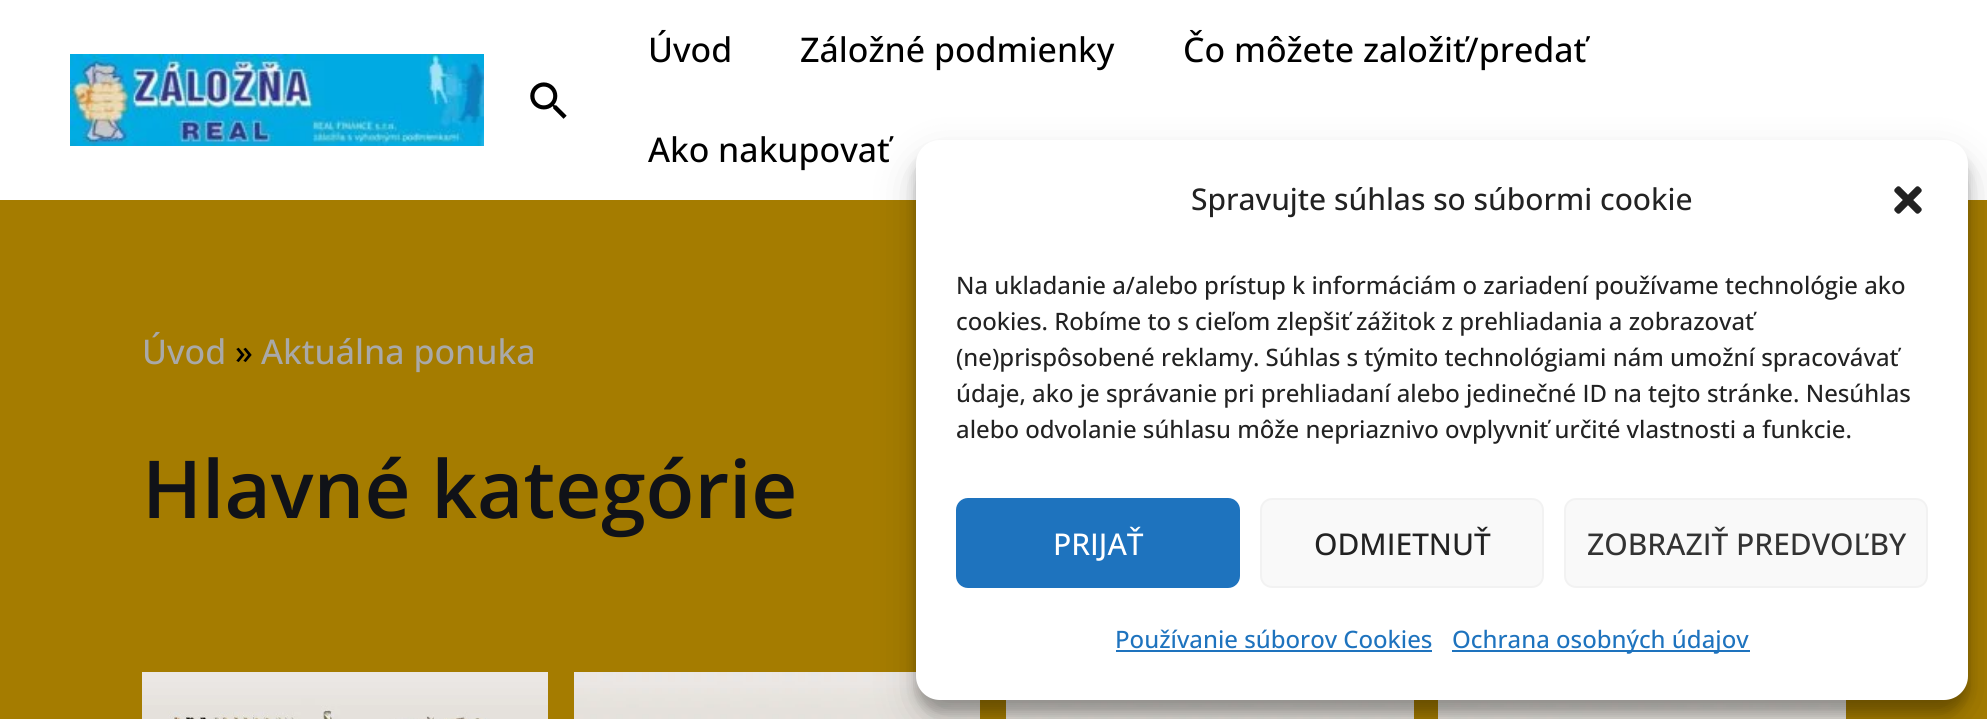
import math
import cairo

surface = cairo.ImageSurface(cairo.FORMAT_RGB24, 1987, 719)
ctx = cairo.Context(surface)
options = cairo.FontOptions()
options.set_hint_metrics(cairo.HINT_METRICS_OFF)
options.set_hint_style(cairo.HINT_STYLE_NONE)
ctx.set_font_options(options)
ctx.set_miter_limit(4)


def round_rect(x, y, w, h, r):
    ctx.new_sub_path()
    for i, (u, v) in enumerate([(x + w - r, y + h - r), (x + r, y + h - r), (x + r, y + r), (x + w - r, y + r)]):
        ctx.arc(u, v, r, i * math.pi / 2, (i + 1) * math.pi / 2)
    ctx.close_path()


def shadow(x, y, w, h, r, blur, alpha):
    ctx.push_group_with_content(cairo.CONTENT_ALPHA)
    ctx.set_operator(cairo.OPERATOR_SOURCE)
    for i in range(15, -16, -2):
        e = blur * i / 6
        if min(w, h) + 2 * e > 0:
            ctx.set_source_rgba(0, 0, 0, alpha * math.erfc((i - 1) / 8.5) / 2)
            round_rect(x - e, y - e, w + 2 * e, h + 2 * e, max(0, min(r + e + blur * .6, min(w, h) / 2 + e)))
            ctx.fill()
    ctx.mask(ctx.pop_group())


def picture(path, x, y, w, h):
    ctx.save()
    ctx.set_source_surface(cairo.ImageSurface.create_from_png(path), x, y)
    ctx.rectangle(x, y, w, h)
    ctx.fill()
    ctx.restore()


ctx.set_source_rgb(0.647, 0.486, 0)
ctx.paint()
ctx.set_source_rgb(1, 1, 1)
ctx.rectangle(0, 0, 1987, 200)
ctx.fill()
picture("img1.png", 70, 54, 414, 92)
picture("img2.png", 530, 82, 37, 37)
ctx.select_font_face("Open Sans Medium")
ctx.set_font_size(34)
ctx.set_source_rgb(0, 0, 0)
ctx.move_to(648, 62)
ctx.show_text("Úvod")
ctx.move_to(800, 62)
ctx.show_text("Záložné podmienky")
ctx.move_to(1183, 62)
ctx.show_text("Čo môžete založiť/predať")
ctx.move_to(648, 162)
ctx.show_text("Ako nakupovať")
ctx.set_source_rgb(0.663, 0.663, 0.663)
ctx.move_to(142, 364)
ctx.show_text("Úvod")
ctx.set_source_rgb(0, 0, 0)
ctx.move_to(235, 364)
ctx.show_text("»")
ctx.set_source_rgb(0.663, 0.663, 0.663)
ctx.move_to(261, 364)
ctx.show_text("Aktuálna ponuka")
ctx.select_font_face("Open Sans SemiBold")
ctx.set_font_size(80)
ctx.set_source_rgb(0.063, 0.071, 0.094)
ctx.move_to(142, 518)
ctx.show_text("Hlavné kategórie")
picture("img3.png", 142, 672, 406, 47)
picture("img4.png", 574, 672, 406, 47)
picture("img5.png", 1006, 700, 408, 19)
picture("img6.png", 1438, 700, 408, 19)
ctx.set_source_rgb(0, 0, 0)
shadow(916, 152, 1052, 560, 24, 6, 0.23)
shadow(916, 160, 1052, 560, 24, 20, 0.19)
ctx.set_source_rgb(1, 1, 1)
round_rect(916, 140, 1052, 560, 24)
ctx.fill()
ctx.select_font_face("Open Sans Medium")
ctx.set_font_size(30)
ctx.set_source_rgb(0.133, 0.133, 0.133)
ctx.move_to(1191, 210)
ctx.show_text("Spravujte súhlas so súbormi cookie")
picture("img7.png", 1894, 186, 28, 28)
ctx.set_font_size(24)
ctx.move_to(956, 294)
ctx.show_text("Na ukladanie a/alebo prístup k informáciám o zariadení používame technológie ako")
ctx.move_to(956, 330)
ctx.show_text("cookies. Robíme to s cieľom zlepšiť zážitok z prehliadania a zobrazovať")
ctx.move_to(956, 366)
ctx.show_text("(ne)prispôsobené reklamy. Súhlas s týmito technológiami nám umožní spracovávať")
ctx.move_to(956, 402)
ctx.show_text("údaje, ako je správanie pri prehliadaní alebo jedinečné ID na tejto stránke. Nesúhlas")
ctx.move_to(956, 438)
ctx.show_text("alebo odvolanie súhlasu môže nepriaznivo ovplyvniť určité vlastnosti a funkcie.")
ctx.set_source_rgb(0.118, 0.451, 0.745)
round_rect(957, 499, 282, 88, 11)
ctx.fill_preserve()
ctx.stroke()
ctx.set_font_size(30)
ctx.set_source_rgb(1, 1, 1)
ctx.move_to(1053, 555)
ctx.show_text("PRIJAŤ")
ctx.set_source_rgb(0.976, 0.976, 0.976)
round_rect(1261, 499, 282, 88, 11)
ctx.fill_preserve()
ctx.set_source_rgb(0.949, 0.949, 0.949)
ctx.stroke()
ctx.set_source_rgb(0.133, 0.133, 0.133)
ctx.move_to(1314, 555)
ctx.show_text("ODMIETNUŤ")
ctx.set_source_rgb(0.976, 0.976, 0.976)
round_rect(1565, 499, 362, 88, 11)
ctx.fill_preserve()
ctx.set_source_rgb(0.949, 0.949, 0.949)
ctx.stroke()
ctx.set_source_rgb(0.2, 0.2, 0.2)
ctx.move_to(1587, 555)
ctx.show_text("ZOBRAZIŤ PREDVOĽBY")
ctx.set_font_size(24)
ctx.set_source_rgb(0.118, 0.451, 0.745)
ctx.move_to(1115, 648)
ctx.show_text("Používanie súborov Cookies")
ctx.rectangle(1116, 650, 316, 2)
ctx.fill()
ctx.rectangle(1452, 650, 298, 2)
ctx.fill()
ctx.move_to(1452, 648)
ctx.show_text("Ochrana osobných údajov")
surface.write_to_png("page.png")
